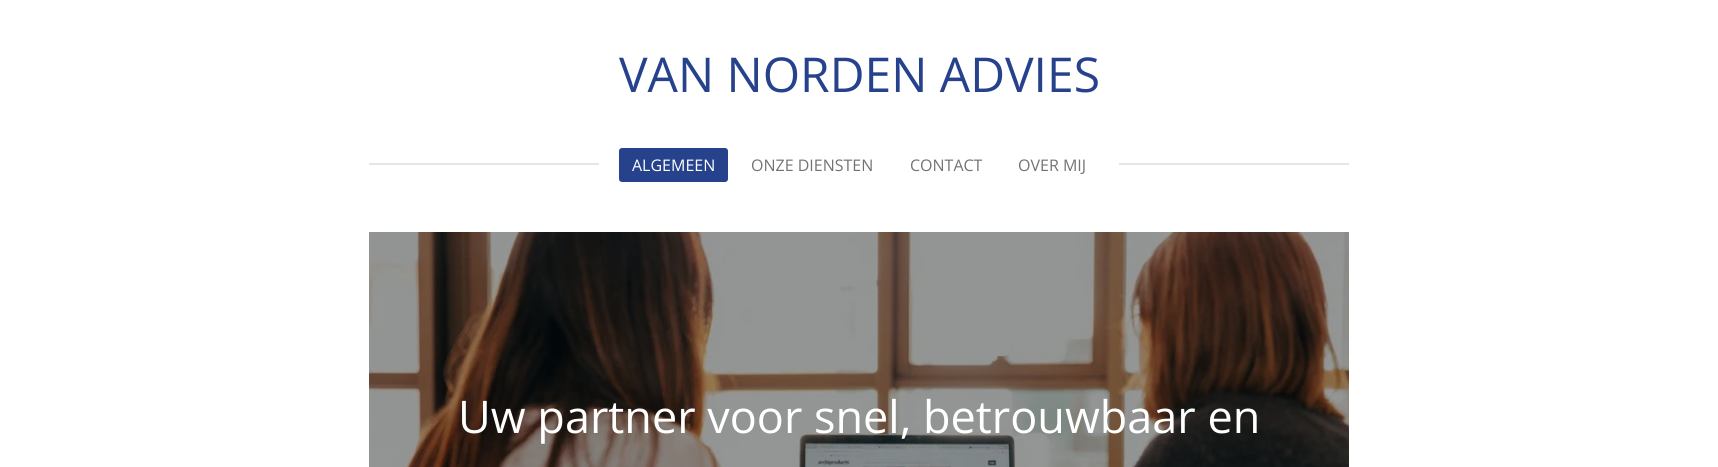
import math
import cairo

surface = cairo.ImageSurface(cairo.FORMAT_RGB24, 1718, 467)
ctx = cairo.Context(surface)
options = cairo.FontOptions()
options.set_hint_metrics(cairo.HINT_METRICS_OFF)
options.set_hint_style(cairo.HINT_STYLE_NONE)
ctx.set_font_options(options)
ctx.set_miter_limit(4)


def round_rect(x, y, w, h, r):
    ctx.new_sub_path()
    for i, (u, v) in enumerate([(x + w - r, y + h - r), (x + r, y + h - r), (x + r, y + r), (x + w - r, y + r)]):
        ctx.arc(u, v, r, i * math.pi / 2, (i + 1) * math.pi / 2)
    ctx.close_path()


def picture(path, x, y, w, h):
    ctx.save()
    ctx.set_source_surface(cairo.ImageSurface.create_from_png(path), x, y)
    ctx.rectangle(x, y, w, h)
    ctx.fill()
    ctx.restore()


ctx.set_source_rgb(1, 1, 1)
ctx.paint()
ctx.select_font_face("Open Sans")
ctx.set_font_size(48)
ctx.set_source_rgb(0.149, 0.259, 0.553)
ctx.move_to(619, 92)
ctx.show_text("VAN NORDEN ADVIES")
ctx.set_source_rgb(0.902, 0.902, 0.902)
ctx.rectangle(369, 163, 230, 2)
ctx.fill()
ctx.set_source_rgb(0.149, 0.259, 0.553)
round_rect(619, 148, 109, 34, 3)
ctx.fill()
ctx.set_font_size(16)
ctx.set_source_rgb(1, 1, 1)
ctx.move_to(632, 171)
ctx.show_text("ALGEMEEN")
ctx.set_source_rgb(0.451, 0.451, 0.451)
ctx.move_to(751, 171)
ctx.show_text("ONZE DIENSTEN")
ctx.move_to(910, 171)
ctx.show_text("CONTACT")
ctx.move_to(1018, 171)
ctx.show_text("OVER MIJ")
ctx.set_source_rgb(0.902, 0.902, 0.902)
ctx.rectangle(1119, 163, 230, 2)
ctx.fill()
picture("img1.png", 369, 232, 980, 235)
ctx.set_font_size(45)
ctx.set_source_rgb(1, 1, 1)
ctx.move_to(458, 433)
ctx.show_text("Uw partner voor snel, betrouwbaar en")
surface.write_to_png("page.png")
